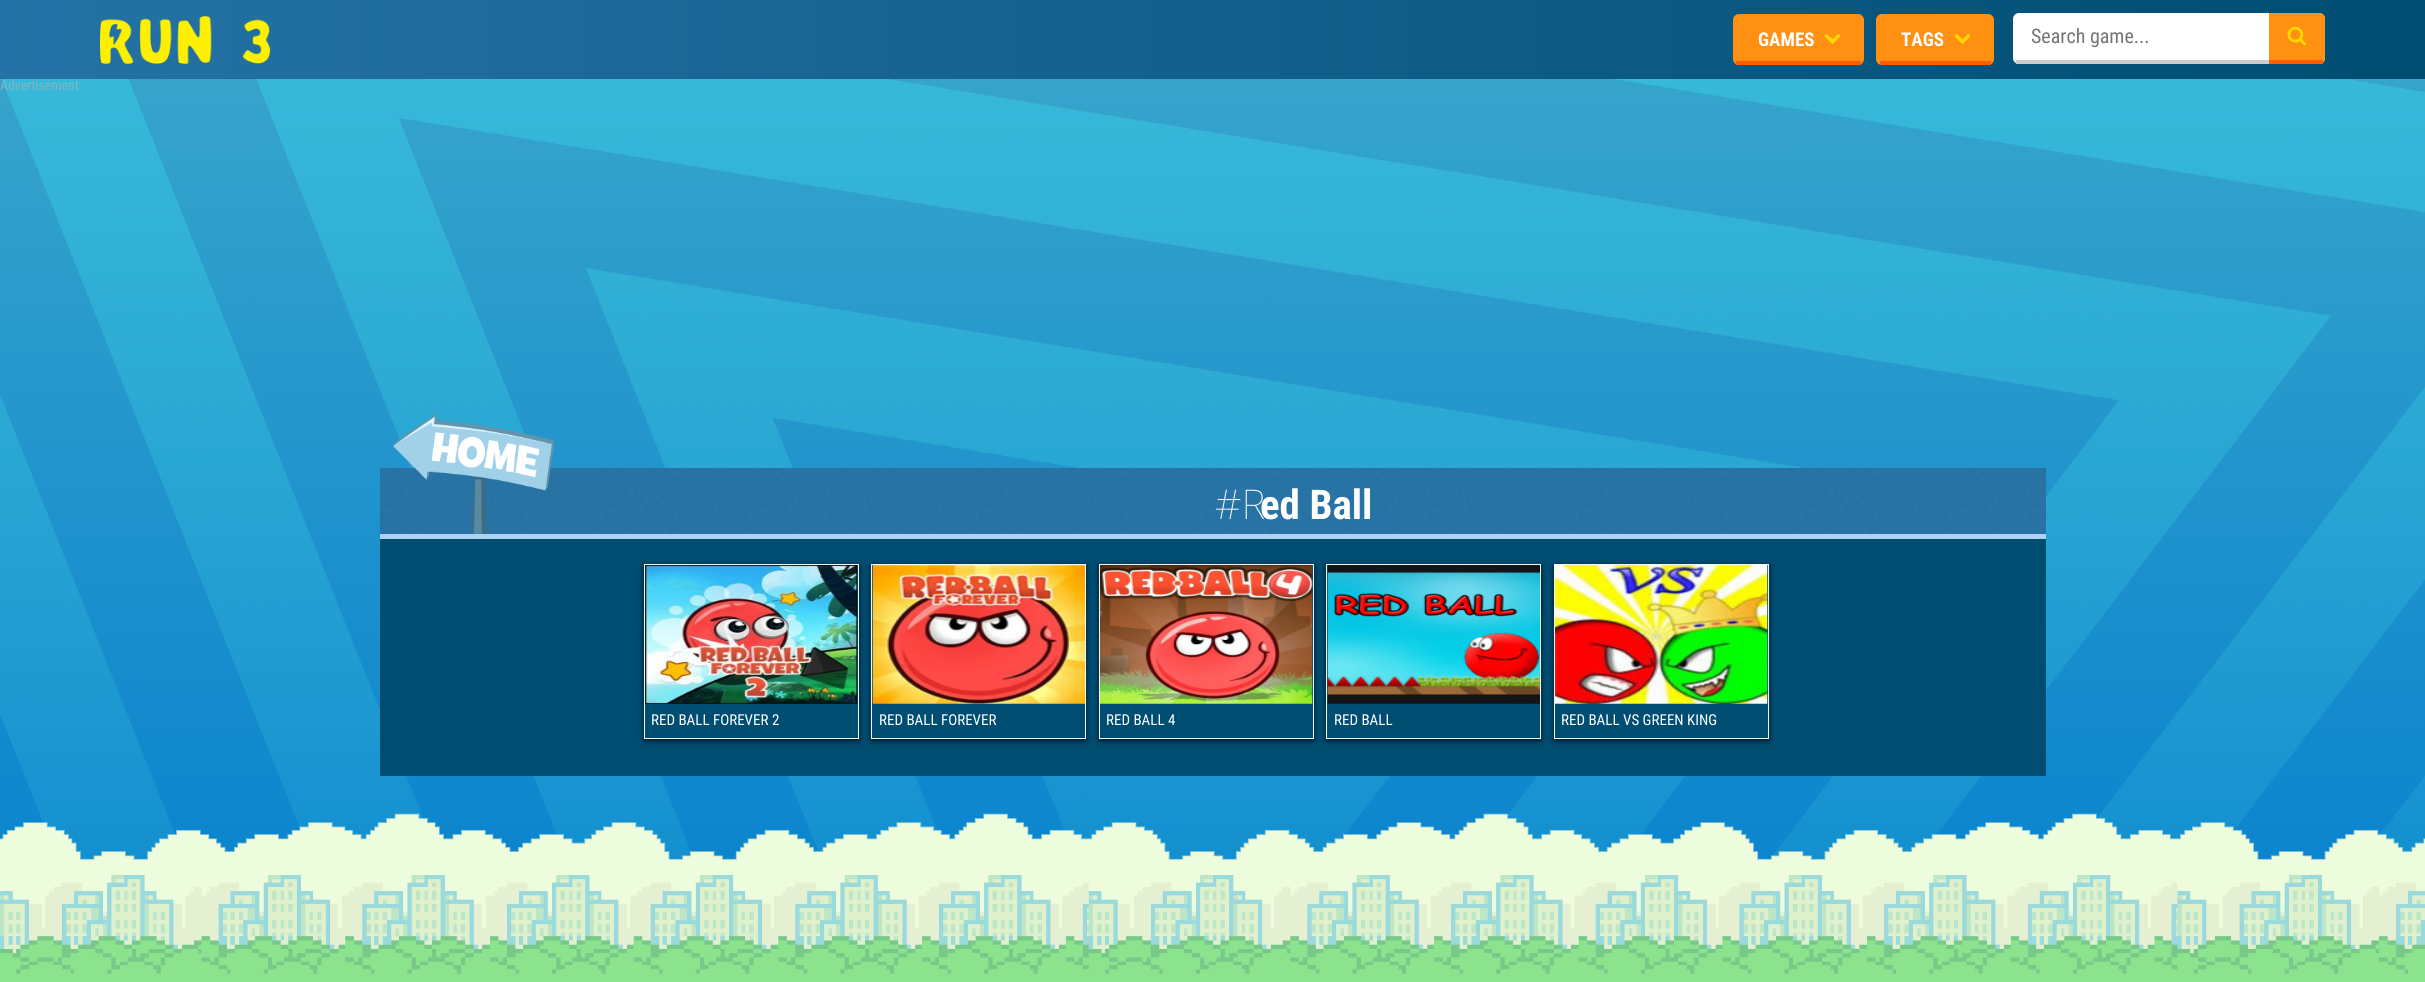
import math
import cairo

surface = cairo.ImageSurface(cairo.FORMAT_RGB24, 2425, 982)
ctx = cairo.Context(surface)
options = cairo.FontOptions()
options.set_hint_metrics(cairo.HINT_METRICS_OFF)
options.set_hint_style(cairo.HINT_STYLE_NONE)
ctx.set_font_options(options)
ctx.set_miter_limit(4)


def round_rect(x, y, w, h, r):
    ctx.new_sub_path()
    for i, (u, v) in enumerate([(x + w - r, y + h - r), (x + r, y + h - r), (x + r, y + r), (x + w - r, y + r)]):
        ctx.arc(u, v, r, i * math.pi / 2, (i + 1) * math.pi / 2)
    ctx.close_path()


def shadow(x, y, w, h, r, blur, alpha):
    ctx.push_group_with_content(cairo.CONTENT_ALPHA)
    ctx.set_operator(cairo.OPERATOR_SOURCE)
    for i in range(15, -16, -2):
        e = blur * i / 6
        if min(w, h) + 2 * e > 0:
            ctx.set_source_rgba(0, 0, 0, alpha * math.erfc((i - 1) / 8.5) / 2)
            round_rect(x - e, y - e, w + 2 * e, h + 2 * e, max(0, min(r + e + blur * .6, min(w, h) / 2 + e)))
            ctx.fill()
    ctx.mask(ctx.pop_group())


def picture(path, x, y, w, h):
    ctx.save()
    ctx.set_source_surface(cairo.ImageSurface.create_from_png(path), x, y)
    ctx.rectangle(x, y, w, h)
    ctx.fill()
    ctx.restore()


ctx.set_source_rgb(1, 1, 1)
ctx.paint()
picture("img1.png", 0, 79, 2425, 781)
gradient = cairo.LinearGradient(0, 39, 2425, 39)
gradient.add_color_stop_rgba(0, 0.145, 0.447, 0.651, 1)
gradient.add_color_stop_rgba(1, 0, 0.302, 0.447, 1)
ctx.set_source(gradient)
ctx.rectangle(0, 0, 2425, 79)
ctx.fill()
picture("img2.png", 100, 16, 170, 48)
ctx.set_source_rgb(1, 0.565, 0.071)
round_rect(1733, 14, 131, 51, 6)
ctx.fill()
ctx.set_source_rgb(1, 0.365, 0.004)
ctx.rectangle(1736, 61, 125, 4)
ctx.fill()
ctx.select_font_face("Roboto Condensed", cairo.FONT_SLANT_NORMAL, cairo.FONT_WEIGHT_BOLD)
ctx.set_font_size(19)
ctx.set_source_rgb(1, 1, 1)
ctx.move_to(1758, 46)
ctx.show_text("GAMES")
picture("img3.png", 1824, 34, 17, 10)
ctx.set_source_rgb(1, 0.565, 0.071)
round_rect(1876, 14, 118, 51, 6)
ctx.fill()
ctx.set_source_rgb(1, 0.365, 0.004)
ctx.rectangle(1880, 61, 111, 4)
ctx.fill()
ctx.set_source_rgb(1, 1, 1)
ctx.move_to(1901, 46)
ctx.show_text("TAGS")
picture("img3.png", 1954, 34, 17, 10)
round_rect(2013, 13, 312, 51, 6)
ctx.fill()
ctx.set_source_rgb(0.8, 0.8, 0.8)
ctx.rectangle(2016, 60, 253, 4)
ctx.fill()
ctx.select_font_face("Roboto Condensed")
ctx.set_font_size(20)
ctx.set_source_rgb(0.459, 0.459, 0.459)
ctx.move_to(2031, 43)
ctx.show_text("Search game...")
ctx.set_source_rgb(1, 0.565, 0.071)
ctx.new_path()
ctx.move_to(2269, 13)
ctx.line_to(2319, 13)
ctx.curve_to(2322.5, 13, 2325, 15.5, 2325, 19)
ctx.line_to(2325, 58)
ctx.curve_to(2325, 61.5, 2322.5, 64, 2319, 64)
ctx.line_to(2269, 64)
ctx.close_path()
ctx.fill()
ctx.set_source_rgb(1, 0.365, 0.004)
ctx.rectangle(2269, 60, 54, 4)
ctx.fill()
picture("img4.png", 2287, 26, 19, 20)
ctx.set_font_size(13.75)
ctx.set_source_rgb(0.506, 0.71, 0.761)
ctx.move_to(0, 90)
ctx.show_text("Advertisement")
ctx.set_source_rgb(0, 0.302, 0.447)
ctx.rectangle(380, 539, 1666, 237)
ctx.fill()
ctx.set_source_rgb(0.145, 0.447, 0.651)
ctx.rectangle(380, 468, 1666, 66)
ctx.fill()
picture("img5.png", 380, 467, 1666, 67)
picture("img6.png", 393, 413, 162, 121)
ctx.select_font_face("Noto Sans Thin")
ctx.set_font_size(41)
ctx.set_source_rgb(1, 1, 1)
ctx.move_to(1215, 519)
ctx.show_text("#R")
ctx.select_font_face("Roboto Condensed", cairo.FONT_SLANT_NORMAL, cairo.FONT_WEIGHT_BOLD)
ctx.move_to(1260, 519)
ctx.show_text("ed Ball")
ctx.set_source_rgb(0.682, 0.824, 0.953)
ctx.rectangle(380, 534, 1666, 5)
ctx.fill()
ctx.save()
ctx.set_fill_rule(cairo.FILL_RULE_EVEN_ODD)
ctx.new_path()
ctx.move_to(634, 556)
ctx.line_to(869, 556)
ctx.line_to(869, 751)
ctx.line_to(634, 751)
ctx.close_path()
ctx.move_to(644, 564)
ctx.line_to(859, 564)
ctx.line_to(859, 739)
ctx.line_to(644, 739)
ctx.close_path()
ctx.clip()
ctx.set_source_rgb(0, 0, 0)
shadow(644, 566, 215, 175, 0, 3, 0.7)
ctx.restore()
ctx.rectangle(644.5, 564.5, 214, 174)
ctx.set_source_rgb(0.961, 0.961, 0.961)
ctx.set_line_width(1)
ctx.stroke()
picture("img7.png", 645, 565, 213, 139)
ctx.select_font_face("Roboto Condensed")
ctx.set_font_size(15)
ctx.set_source_rgb(1, 1, 1)
ctx.move_to(651, 725)
ctx.show_text("RED BALL FOREVER 2")
ctx.save()
ctx.set_fill_rule(cairo.FILL_RULE_EVEN_ODD)
ctx.new_path()
ctx.move_to(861, 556)
ctx.line_to(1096, 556)
ctx.line_to(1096, 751)
ctx.line_to(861, 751)
ctx.close_path()
ctx.move_to(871, 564)
ctx.line_to(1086, 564)
ctx.line_to(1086, 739)
ctx.line_to(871, 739)
ctx.close_path()
ctx.clip()
ctx.set_source_rgb(0, 0, 0)
shadow(871, 566, 215, 175, 0, 3, 0.7)
ctx.restore()
ctx.rectangle(871.5, 564.5, 214, 174)
ctx.set_source_rgb(0.961, 0.961, 0.961)
ctx.stroke()
picture("img8.png", 872, 565, 213, 139)
ctx.set_source_rgb(1, 1, 1)
ctx.move_to(879, 725)
ctx.show_text("RED BALL FOREVER")
ctx.save()
ctx.set_fill_rule(cairo.FILL_RULE_EVEN_ODD)
ctx.new_path()
ctx.move_to(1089, 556)
ctx.line_to(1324, 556)
ctx.line_to(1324, 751)
ctx.line_to(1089, 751)
ctx.close_path()
ctx.move_to(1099, 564)
ctx.line_to(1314, 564)
ctx.line_to(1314, 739)
ctx.line_to(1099, 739)
ctx.close_path()
ctx.clip()
ctx.set_source_rgb(0, 0, 0)
shadow(1099, 566, 215, 175, 0, 3, 0.7)
ctx.restore()
ctx.rectangle(1099.5, 564.5, 214, 174)
ctx.set_source_rgb(0.961, 0.961, 0.961)
ctx.stroke()
picture("img9.png", 1100, 565, 213, 139)
ctx.set_source_rgb(1, 1, 1)
ctx.move_to(1106, 725)
ctx.show_text("RED BALL 4")
ctx.save()
ctx.set_fill_rule(cairo.FILL_RULE_EVEN_ODD)
ctx.new_path()
ctx.move_to(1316, 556)
ctx.line_to(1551, 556)
ctx.line_to(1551, 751)
ctx.line_to(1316, 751)
ctx.close_path()
ctx.move_to(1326, 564)
ctx.line_to(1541, 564)
ctx.line_to(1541, 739)
ctx.line_to(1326, 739)
ctx.close_path()
ctx.clip()
ctx.set_source_rgb(0, 0, 0)
shadow(1326, 566, 215, 175, 0, 3, 0.7)
ctx.restore()
ctx.rectangle(1326.5, 564.5, 214, 174)
ctx.set_source_rgb(0.961, 0.961, 0.961)
ctx.stroke()
picture("img10.png", 1327, 565, 213, 139)
ctx.set_source_rgb(1, 1, 1)
ctx.move_to(1334, 725)
ctx.show_text("RED BALL")
ctx.save()
ctx.set_fill_rule(cairo.FILL_RULE_EVEN_ODD)
ctx.new_path()
ctx.move_to(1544, 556)
ctx.line_to(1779, 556)
ctx.line_to(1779, 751)
ctx.line_to(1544, 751)
ctx.close_path()
ctx.move_to(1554, 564)
ctx.line_to(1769, 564)
ctx.line_to(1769, 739)
ctx.line_to(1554, 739)
ctx.close_path()
ctx.clip()
ctx.set_source_rgb(0, 0, 0)
shadow(1554, 566, 215, 175, 0, 3, 0.7)
ctx.restore()
ctx.rectangle(1554.5, 564.5, 214, 174)
ctx.set_source_rgb(0.961, 0.961, 0.961)
ctx.stroke()
picture("img11.png", 1555, 565, 213, 139)
ctx.set_source_rgb(1, 1, 1)
ctx.move_to(1561, 725)
ctx.show_text("RED BALL VS GREEN KING")
picture("img12.png", 0, 813, 2425, 169)
surface.write_to_png("page.png")
